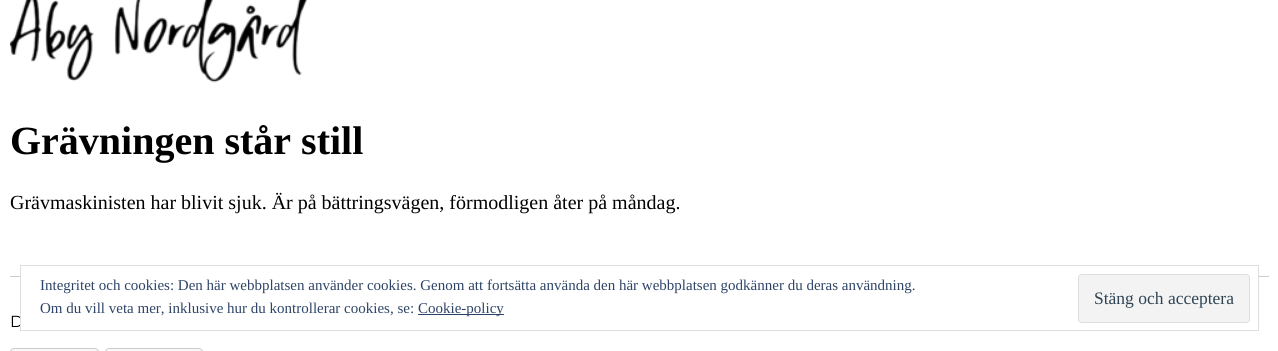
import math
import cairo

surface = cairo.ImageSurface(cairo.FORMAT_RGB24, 1278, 351)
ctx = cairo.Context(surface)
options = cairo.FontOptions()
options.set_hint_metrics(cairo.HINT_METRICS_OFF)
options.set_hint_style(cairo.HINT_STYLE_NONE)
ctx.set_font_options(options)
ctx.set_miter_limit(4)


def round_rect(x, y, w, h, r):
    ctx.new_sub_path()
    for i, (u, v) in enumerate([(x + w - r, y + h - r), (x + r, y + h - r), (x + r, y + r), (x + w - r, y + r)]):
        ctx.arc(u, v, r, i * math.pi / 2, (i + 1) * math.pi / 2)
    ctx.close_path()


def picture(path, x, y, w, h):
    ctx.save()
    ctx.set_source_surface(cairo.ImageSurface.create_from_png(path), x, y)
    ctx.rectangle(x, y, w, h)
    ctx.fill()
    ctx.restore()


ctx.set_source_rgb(1, 1, 1)
ctx.paint()
picture("img1.png", 10, 0, 298, 83)
ctx.select_font_face("Liberation Serif", cairo.FONT_SLANT_NORMAL, cairo.FONT_WEIGHT_BOLD)
ctx.set_font_size(40)
ctx.set_source_rgb(0, 0, 0)
ctx.move_to(10, 154)
ctx.show_text("Grävningen står still")
ctx.select_font_face("Liberation Serif")
ctx.set_font_size(20)
ctx.move_to(10, 209)
ctx.show_text("Grävmaskinisten har blivit sjuk. Är på bättringsvägen, förmodligen åter på måndag.")
ctx.set_source_rgb(0.8, 0.8, 0.8)
ctx.rectangle(10, 276, 1259, 1)
ctx.fill()
ctx.select_font_face("Montserrat")
ctx.set_font_size(16)
ctx.set_source_rgb(0, 0, 0)
ctx.move_to(10, 327)
ctx.show_text("D")
ctx.set_source_rgb(0.973, 0.973, 0.973)
round_rect(10.5, 348.5, 88, 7, 3.5)
ctx.fill_preserve()
ctx.set_source_rgb(0.8, 0.8, 0.8)
ctx.set_line_width(1)
ctx.stroke()
ctx.set_source_rgb(0.973, 0.973, 0.973)
round_rect(105.5, 348.5, 97, 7, 3.5)
ctx.fill_preserve()
ctx.set_source_rgb(0.8, 0.8, 0.8)
ctx.stroke()
ctx.set_source_rgb(1, 1, 1)
ctx.rectangle(21, 276, 1237, 50)
ctx.fill()
ctx.rectangle(20.5, 265.5, 1238, 65)
ctx.set_source_rgb(0.871, 0.871, 0.871)
ctx.stroke()
ctx.select_font_face("Liberation Serif")
ctx.set_font_size(15)
ctx.set_source_rgb(0.18, 0.267, 0.404)
ctx.move_to(40, 290)
ctx.show_text("Integritet och cookies: Den här webbplatsen använder cookies. Genom att fortsätta använda den här webbplatsen godkänner du deras användning.")
ctx.move_to(40, 313)
ctx.show_text("Om du vill veta mer, inklusive hur du kontrollerar cookies, se:")
ctx.rectangle(418, 314, 86, 1)
ctx.fill()
ctx.move_to(418, 313)
ctx.show_text("Cookie-policy")
ctx.set_source_rgb(0.953, 0.953, 0.953)
round_rect(1078.5, 274.5, 171, 48, 3.5)
ctx.fill_preserve()
ctx.set_source_rgb(0.871, 0.871, 0.871)
ctx.stroke()
ctx.set_font_size(17.5)
ctx.set_source_rgb(0.18, 0.267, 0.325)
ctx.move_to(1094, 304)
ctx.show_text("Stäng och acceptera")
surface.write_to_png("page.png")
